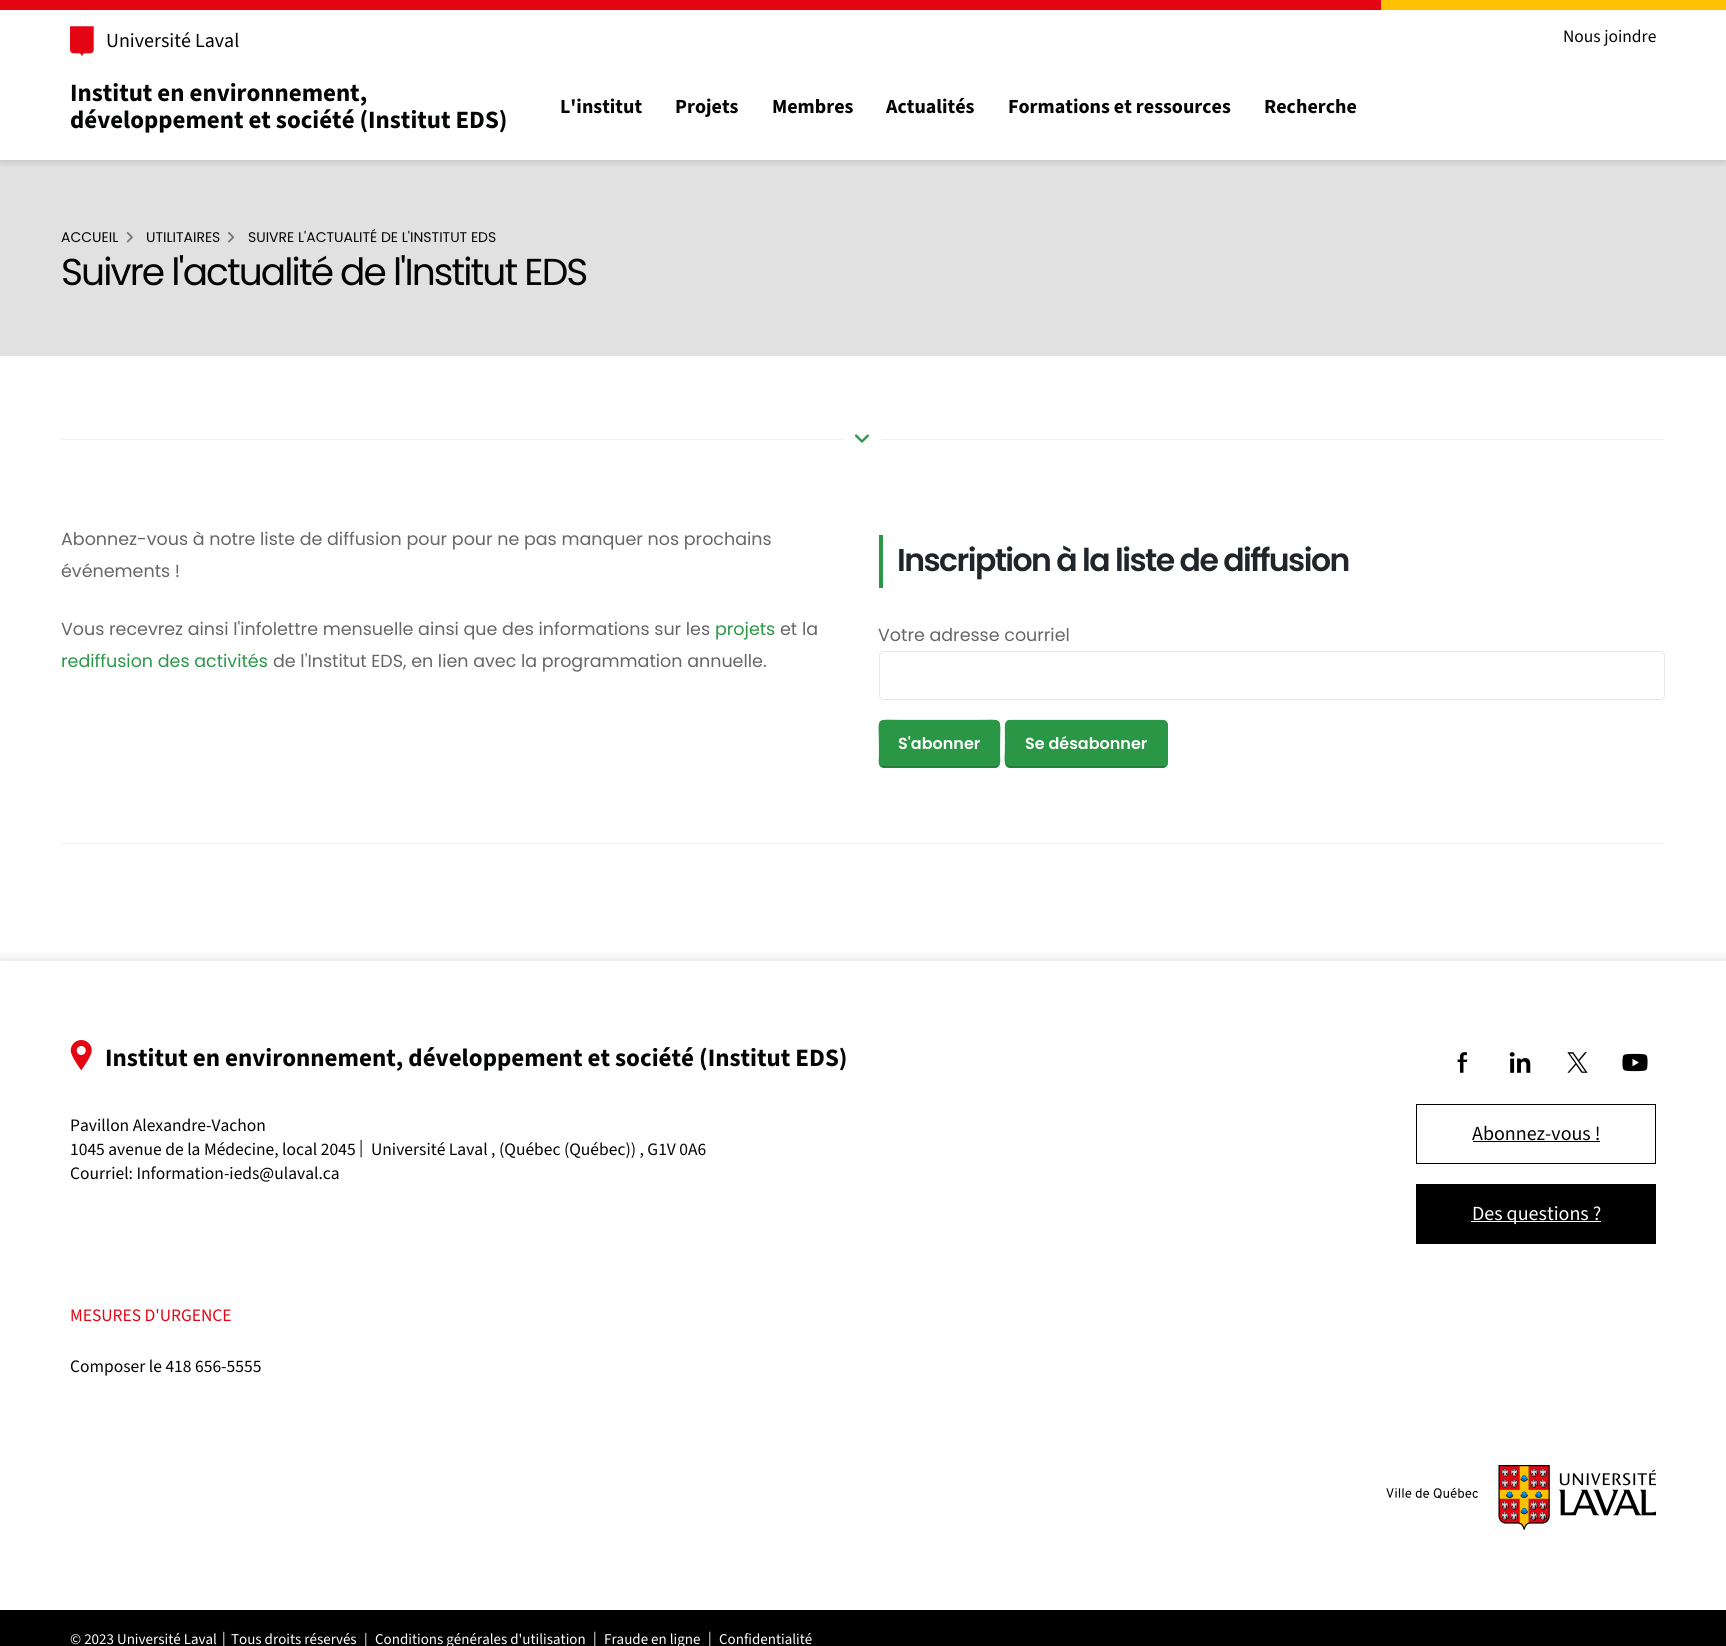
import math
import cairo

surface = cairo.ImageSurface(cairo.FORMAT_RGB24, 1726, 1646)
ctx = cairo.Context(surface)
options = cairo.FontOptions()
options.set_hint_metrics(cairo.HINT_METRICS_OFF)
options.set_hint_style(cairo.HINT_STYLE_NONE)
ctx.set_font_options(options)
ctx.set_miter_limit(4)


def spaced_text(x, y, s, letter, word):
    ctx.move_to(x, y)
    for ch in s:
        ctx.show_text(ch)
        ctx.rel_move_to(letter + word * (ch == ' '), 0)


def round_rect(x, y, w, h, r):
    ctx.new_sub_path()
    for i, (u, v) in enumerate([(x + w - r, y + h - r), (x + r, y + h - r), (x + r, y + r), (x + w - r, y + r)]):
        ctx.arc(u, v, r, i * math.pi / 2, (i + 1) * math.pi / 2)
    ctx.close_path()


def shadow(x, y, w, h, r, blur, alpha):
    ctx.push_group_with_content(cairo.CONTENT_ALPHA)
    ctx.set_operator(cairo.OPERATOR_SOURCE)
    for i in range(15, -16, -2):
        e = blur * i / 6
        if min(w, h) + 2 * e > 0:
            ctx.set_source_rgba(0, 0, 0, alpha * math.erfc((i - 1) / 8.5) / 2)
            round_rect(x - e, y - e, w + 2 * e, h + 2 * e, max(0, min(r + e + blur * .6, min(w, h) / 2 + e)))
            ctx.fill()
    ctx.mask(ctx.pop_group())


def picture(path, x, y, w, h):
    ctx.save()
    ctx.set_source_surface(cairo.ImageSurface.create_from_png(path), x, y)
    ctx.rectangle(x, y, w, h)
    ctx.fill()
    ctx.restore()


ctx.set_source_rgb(1, 1, 1)
ctx.paint()
ctx.set_source_rgb(0.882, 0.882, 0.886)
ctx.rectangle(0, 160, 1726, 196)
ctx.fill()
ctx.save()
ctx.rectangle(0, 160, 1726, 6)
ctx.clip()
ctx.set_source_rgb(0, 0, 0)
shadow(0, 1, 1726, 160, 0, 4.5, 0.15)
ctx.restore()
ctx.set_source_rgb(0.89, 0.02, 0.075)
ctx.rectangle(0, 0, 1381, 10)
ctx.fill()
ctx.set_source_rgb(1, 0.757, 0.012)
ctx.rectangle(1381, 0, 345, 10)
ctx.fill()
picture("img1.png", 70, 26, 24, 30)
ctx.select_font_face("Source Sans 3")
ctx.set_font_size(20)
ctx.set_source_rgb(0.012, 0.016, 0.016)
ctx.move_to(106, 47)
ctx.show_text("Université Laval")
ctx.set_font_size(17.5)
ctx.move_to(1563, 42)
ctx.show_text("Nous joindre")
ctx.select_font_face("Source Sans 3", cairo.FONT_SLANT_NORMAL, cairo.FONT_WEIGHT_BOLD)
ctx.set_font_size(24.9)
ctx.move_to(70, 101)
ctx.show_text("Institut en environnement,")
ctx.move_to(70, 128)
ctx.show_text("développement et société (Institut EDS)")
ctx.set_font_size(20)
ctx.move_to(560, 113)
ctx.show_text("L'institut")
ctx.move_to(675, 113)
ctx.show_text("Projets")
ctx.move_to(772, 113)
ctx.show_text("Membres")
ctx.move_to(886, 113)
ctx.show_text("Actualités")
ctx.move_to(1008, 113)
ctx.show_text("Formations et ressources")
ctx.move_to(1264, 113)
ctx.show_text("Recherche")
ctx.select_font_face("Poppins")
ctx.set_font_size(14)
ctx.move_to(61, 242)
ctx.show_text("ACCUEIL")
picture("img2.png", 126, 232, 7, 11)
ctx.move_to(146, 242)
ctx.show_text("UTILITAIRES")
picture("img3.png", 228, 232, 6, 11)
ctx.move_to(248, 242)
ctx.show_text("SUIVRE L'ACTUALITÉ DE L'INSTITUT EDS")
ctx.set_font_size(37.5)
spaced_text(61, 285, "Suivre l'actualité de l'Institut EDS", -1.9, 0)
ctx.set_source_rgb(0.941, 0.941, 0.941)
ctx.rectangle(61, 439, 1604, 1)
ctx.fill()
ctx.set_source_rgb(1, 1, 1)
round_rect(844, 420, 37, 38, 18.5)
ctx.fill()
picture("img4.png", 854, 434, 15, 9)
ctx.set_font_size(17.5)
ctx.set_source_rgb(0.4, 0.4, 0.4)
ctx.move_to(61, 545)
ctx.show_text("Abonnez-vous à notre liste de diffusion pour pour ne pas manquer nos prochains")
ctx.move_to(61, 577)
ctx.show_text("événements !")
ctx.move_to(61, 635)
ctx.show_text("Vous recevrez ainsi l'infolettre mensuelle ainsi que des informations sur les")
ctx.set_source_rgb(0.165, 0.592, 0.275)
ctx.move_to(715, 635)
ctx.show_text("projets")
ctx.set_source_rgb(0.4, 0.4, 0.4)
ctx.move_to(780, 635)
ctx.show_text("et la")
ctx.set_source_rgb(0.165, 0.592, 0.275)
ctx.move_to(61, 667)
ctx.show_text("rediffusion des activités")
ctx.set_source_rgb(0.4, 0.4, 0.4)
ctx.move_to(273, 667)
ctx.show_text("de l'Institut EDS, en lien avec la programmation annuelle.")
ctx.set_source_rgb(0.165, 0.592, 0.275)
ctx.rectangle(879, 535, 4, 53)
ctx.fill()
ctx.select_font_face("Poppins SemiBold")
ctx.set_font_size(31.5)
ctx.set_source_rgb(0.129, 0.145, 0.161)
spaced_text(897, 571, "Inscription à la liste de diffusion", -1.55, 0)
ctx.select_font_face("Poppins")
ctx.set_font_size(17.5)
ctx.set_source_rgb(0.4, 0.4, 0.4)
ctx.move_to(878, 641)
ctx.show_text("Votre adresse courriel")
round_rect(879.5, 651.5, 785, 48, 4.5)
ctx.set_source_rgb(0.91, 0.91, 0.91)
ctx.set_line_width(1)
ctx.stroke()
ctx.set_source_rgb(0.165, 0.592, 0.275)
round_rect(879, 720, 121, 48, 5)
ctx.fill()
ctx.new_path()
ctx.move_to(998, 765.5)
ctx.curve_to(997.5, 766.5, 996, 767, 995, 767)
ctx.line_to(884, 767)
ctx.curve_to(882.5, 767, 881.5, 766.5, 880.5, 765.5)
ctx.set_source_rgb(0.122, 0.435, 0.204)
ctx.set_line_width(1.2)
ctx.stroke()
ctx.new_path()
ctx.move_to(880.5, 765.5)
ctx.curve_to(878.5, 763.5, 879.5, 758.5, 879.5, 756)
ctx.line_to(879.5, 744)
ctx.curve_to(879.5, 716.5, 874.5, 720.5, 902.5, 720.5)
ctx.line_to(976.5, 720.5)
ctx.curve_to(1004, 720.5, 999.5, 716.5, 999.5, 744)
ctx.line_to(999.5, 756)
ctx.curve_to(999.5, 758.5, 1000.5, 763.5, 998, 765.5)
ctx.set_source_rgb(0.165, 0.592, 0.275)
ctx.stroke()
ctx.select_font_face("Poppins SemiBold")
ctx.set_font_size(16)
ctx.set_source_rgb(1, 1, 1)
ctx.move_to(898, 749)
ctx.show_text("S'abonner")
ctx.set_source_rgb(0.165, 0.592, 0.275)
round_rect(1005, 720, 163, 48, 5)
ctx.fill()
ctx.new_path()
ctx.move_to(1165.5, 765.5)
ctx.curve_to(1165, 766.5, 1163.5, 767, 1162.5, 767)
ctx.line_to(1010, 767)
ctx.curve_to(1009, 767, 1007.5, 766.5, 1007, 765.5)
ctx.set_source_rgb(0.122, 0.435, 0.204)
ctx.stroke()
ctx.new_path()
ctx.move_to(1007, 765.5)
ctx.curve_to(1004, 763, 1005.5, 753, 1005.5, 750)
ctx.line_to(1005.5, 731)
ctx.curve_to(1005.5, 728, 1004.5, 720.5, 1010, 720.5)
ctx.line_to(1162.5, 720.5)
ctx.curve_to(1168, 720.5, 1167, 728, 1167, 731)
ctx.line_to(1167, 750)
ctx.curve_to(1167, 753, 1168.5, 763, 1165.5, 765.5)
ctx.set_source_rgb(0.165, 0.592, 0.275)
ctx.stroke()
ctx.set_source_rgb(1, 1, 1)
ctx.move_to(1025, 749)
ctx.show_text("Se désabonner")
ctx.set_source_rgb(0.941, 0.941, 0.941)
ctx.rectangle(61, 843, 1604, 1)
ctx.fill()
ctx.set_source_rgb(0, 0, 0)
shadow(0, 961, 1726, 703, 0, 6, 0.15)
ctx.set_source_rgb(1, 1, 1)
ctx.rectangle(0, 961, 1726, 649)
ctx.fill()
picture("img5.png", 70, 1040, 22, 30)
ctx.select_font_face("Source Sans 3", cairo.FONT_SLANT_NORMAL, cairo.FONT_WEIGHT_BOLD)
ctx.set_font_size(25)
ctx.set_source_rgb(0.012, 0.016, 0.016)
ctx.move_to(105, 1066)
ctx.show_text("Institut en environnement, développement et société (Institut EDS)")
ctx.select_font_face("Source Sans 3")
ctx.set_font_size(17.5)
ctx.move_to(70, 1131)
ctx.show_text("Pavillon Alexandre-Vachon")
ctx.move_to(70, 1155)
ctx.show_text("1045 avenue de la Médecine, local 2045")
ctx.move_to(359, 1153)
ctx.show_text("|")
ctx.move_to(371, 1155)
ctx.show_text("Université Laval , (Québec (Québec)) , G1V 0A6")
ctx.move_to(70, 1179)
ctx.show_text("Courriel: Information-ieds@ulaval.ca")
picture("img6.png", 1457, 1052, 11, 21)
picture("img7.png", 1509, 1052, 22, 21)
picture("img8.png", 1567, 1052, 21, 21)
picture("img9.png", 1622, 1053, 26, 19)
ctx.rectangle(1416.5, 1104.5, 239, 59)
ctx.set_source_rgb(0, 0, 0)
ctx.set_line_width(1)
ctx.stroke()
ctx.set_font_size(20)
ctx.set_source_rgb(0.012, 0.016, 0.016)
ctx.move_to(1472, 1140)
ctx.show_text("Abonnez-vous !")
ctx.set_source_rgb(0, 0, 0)
ctx.rectangle(1473, 1141, 127, 1)
ctx.fill()
ctx.rectangle(1416, 1184, 240, 60)
ctx.fill()
ctx.set_source_rgb(1, 1, 1)
ctx.rectangle(1471, 1221, 130, 1)
ctx.fill()
ctx.move_to(1472, 1220)
ctx.show_text("Des questions ?")
ctx.set_font_size(17.5)
ctx.set_source_rgb(0.89, 0.02, 0.075)
ctx.move_to(70, 1321)
ctx.show_text("MESURES D'URGENCE")
ctx.set_source_rgb(0.012, 0.016, 0.016)
ctx.move_to(70, 1372)
ctx.show_text("Composer le 418 656-5555")
picture("img10.png", 1386, 1465, 270, 65)
ctx.set_source_rgb(0, 0, 0)
ctx.rectangle(0, 1610, 1726, 36)
ctx.fill()
ctx.set_font_size(15)
ctx.set_source_rgb(1, 1, 1)
ctx.move_to(70, 1644)
ctx.show_text("© 2023 Université Laval")
ctx.move_to(222, 1643)
ctx.show_text("|")
ctx.move_to(231, 1644)
ctx.show_text("Tous droits réservés")
ctx.move_to(364, 1644)
ctx.show_text("|")
ctx.move_to(375, 1644)
ctx.show_text("Conditions générales d'utilisation")
ctx.move_to(593, 1643)
ctx.show_text("|")
ctx.move_to(604, 1644)
ctx.show_text("Fraude en ligne")
ctx.move_to(708, 1643)
ctx.show_text("|")
ctx.move_to(719, 1644)
ctx.show_text("Confidentialité")
surface.write_to_png("page.png")
